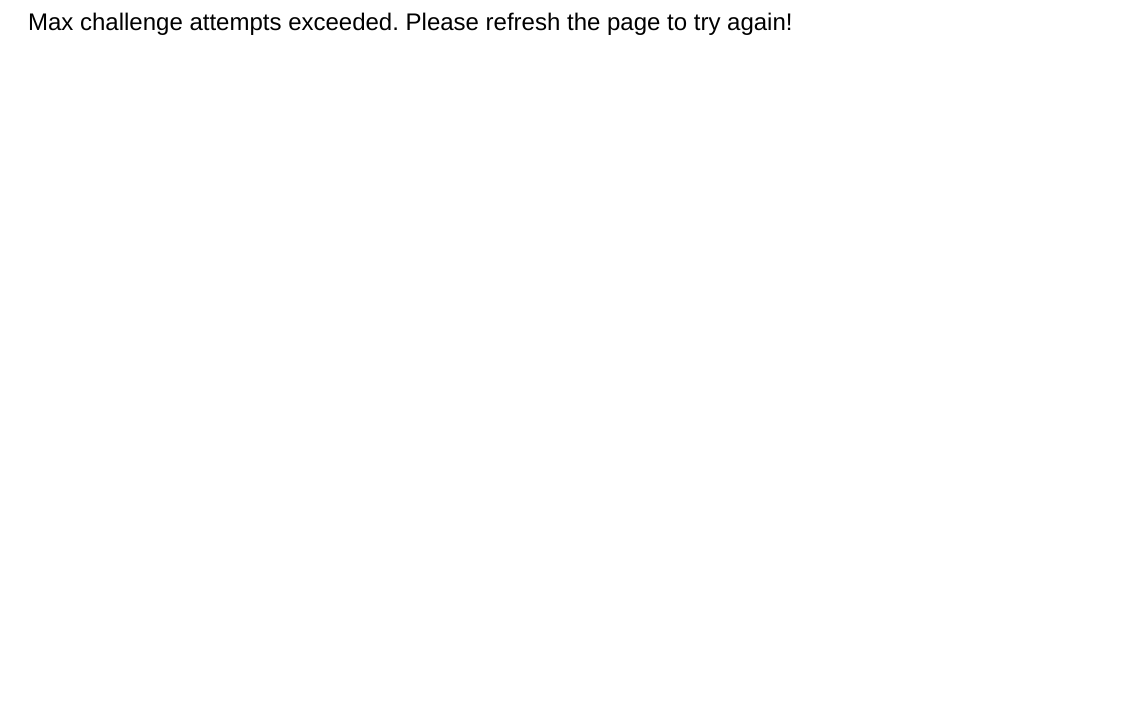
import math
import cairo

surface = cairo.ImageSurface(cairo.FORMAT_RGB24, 1121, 727)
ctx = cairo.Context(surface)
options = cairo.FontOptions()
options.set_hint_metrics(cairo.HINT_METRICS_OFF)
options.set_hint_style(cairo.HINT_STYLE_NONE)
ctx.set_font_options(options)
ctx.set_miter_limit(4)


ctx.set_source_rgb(1, 1, 1)
ctx.paint()
ctx.select_font_face("Liberation Sans")
ctx.set_font_size(24)
ctx.set_source_rgb(0, 0, 0)
ctx.move_to(28, 30)
ctx.show_text("Max challenge attempts exceeded. Please refresh the page to try again!")
surface.write_to_png("page.png")
